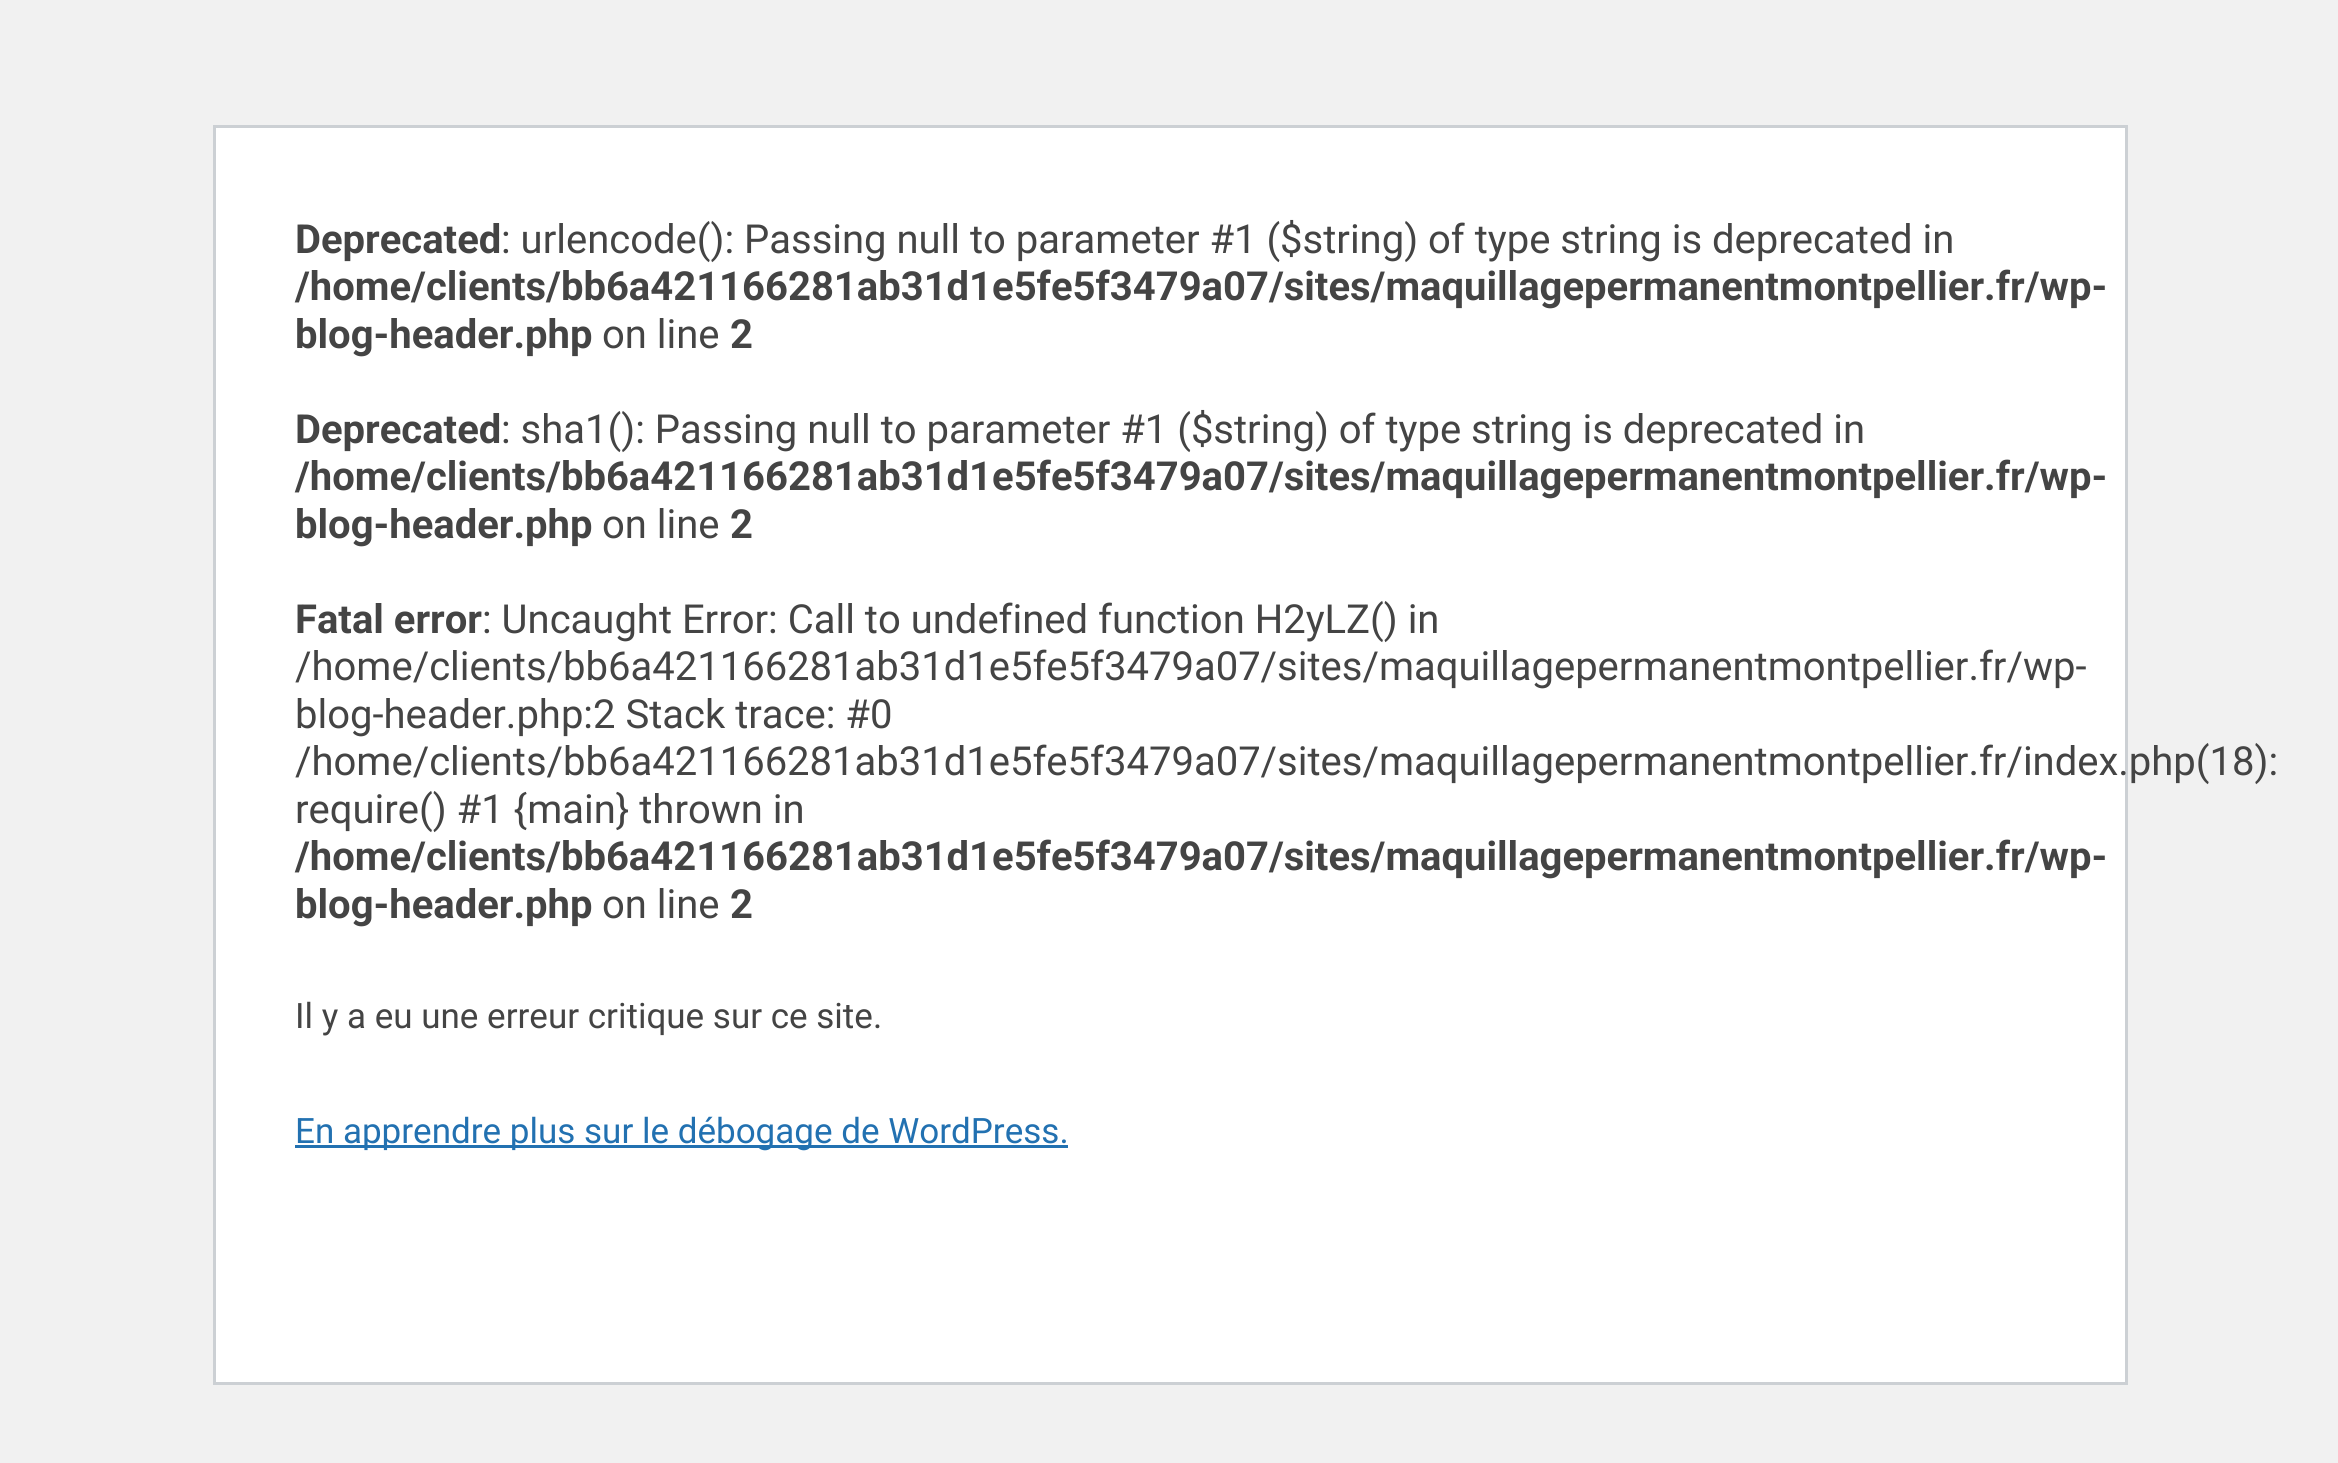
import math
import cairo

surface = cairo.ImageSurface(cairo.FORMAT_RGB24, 2338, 1463)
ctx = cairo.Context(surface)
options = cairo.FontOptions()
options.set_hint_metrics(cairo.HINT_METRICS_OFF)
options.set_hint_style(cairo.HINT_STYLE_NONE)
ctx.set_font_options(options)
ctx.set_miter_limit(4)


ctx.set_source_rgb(0.945, 0.945, 0.945)
ctx.paint()
ctx.set_source_rgb(1, 1, 1)
ctx.rectangle(214.5, 126.5, 1912, 1257)
ctx.fill_preserve()
ctx.set_source_rgb(0.8, 0.816, 0.831)
ctx.set_line_width(3)
ctx.stroke()
ctx.select_font_face("Roboto", cairo.FONT_SLANT_NORMAL, cairo.FONT_WEIGHT_BOLD)
ctx.set_font_size(40)
ctx.set_source_rgb(0.267, 0.267, 0.267)
ctx.move_to(295, 253)
ctx.show_text("Deprecated")
ctx.select_font_face("Roboto")
ctx.move_to(501, 253)
ctx.show_text(": urlencode(): Passing null to parameter #1 ($string) of type string is deprecated in")
ctx.select_font_face("Roboto", cairo.FONT_SLANT_NORMAL, cairo.FONT_WEIGHT_BOLD)
ctx.move_to(295, 300)
ctx.show_text("/home/clients/bb6a421166281ab31d1e5fe5f3479a07/sites/maquillagepermanentmontpellier.fr/wp-")
ctx.move_to(295, 348)
ctx.show_text("blog-header.php")
ctx.select_font_face("Roboto")
ctx.move_to(602, 348)
ctx.show_text("on line")
ctx.select_font_face("Roboto", cairo.FONT_SLANT_NORMAL, cairo.FONT_WEIGHT_BOLD)
ctx.move_to(730, 348)
ctx.show_text("2")
ctx.move_to(295, 443)
ctx.show_text("Deprecated")
ctx.select_font_face("Roboto")
ctx.move_to(501, 443)
ctx.show_text(": sha1(): Passing null to parameter #1 ($string) of type string is deprecated in")
ctx.select_font_face("Roboto", cairo.FONT_SLANT_NORMAL, cairo.FONT_WEIGHT_BOLD)
ctx.move_to(295, 490)
ctx.show_text("/home/clients/bb6a421166281ab31d1e5fe5f3479a07/sites/maquillagepermanentmontpellier.fr/wp-")
ctx.move_to(295, 538)
ctx.show_text("blog-header.php")
ctx.select_font_face("Roboto")
ctx.move_to(602, 538)
ctx.show_text("on line")
ctx.select_font_face("Roboto", cairo.FONT_SLANT_NORMAL, cairo.FONT_WEIGHT_BOLD)
ctx.move_to(730, 538)
ctx.show_text("2")
ctx.move_to(295, 633)
ctx.show_text("Fatal error")
ctx.select_font_face("Roboto")
ctx.move_to(482, 633)
ctx.show_text(": Uncaught Error: Call to undefined function H2yLZ() in")
ctx.move_to(295, 680)
ctx.show_text("/home/clients/bb6a421166281ab31d1e5fe5f3479a07/sites/maquillagepermanentmontpellier.fr/wp-")
ctx.move_to(295, 728)
ctx.show_text("blog-header.php:2 Stack trace: #0")
ctx.move_to(295, 775)
ctx.show_text("/home/clients/bb6a421166281ab31d1e5fe5f3479a07/sites/maquillagepermanentmontpellier.fr/index.php(18):")
ctx.move_to(295, 823)
ctx.show_text("require() #1 {main} thrown in")
ctx.select_font_face("Roboto", cairo.FONT_SLANT_NORMAL, cairo.FONT_WEIGHT_BOLD)
ctx.move_to(295, 870)
ctx.show_text("/home/clients/bb6a421166281ab31d1e5fe5f3479a07/sites/maquillagepermanentmontpellier.fr/wp-")
ctx.move_to(295, 918)
ctx.show_text("blog-header.php")
ctx.select_font_face("Roboto")
ctx.move_to(602, 918)
ctx.show_text("on line")
ctx.select_font_face("Roboto", cairo.FONT_SLANT_NORMAL, cairo.FONT_WEIGHT_BOLD)
ctx.move_to(730, 918)
ctx.show_text("2")
ctx.select_font_face("Roboto")
ctx.set_font_size(35)
ctx.move_to(295, 1028)
ctx.show_text("Il y a eu une erreur critique sur ce site.")
ctx.set_source_rgb(0.133, 0.443, 0.694)
ctx.rectangle(295, 1145, 773, 3)
ctx.fill()
ctx.move_to(295, 1143)
ctx.show_text("En apprendre plus sur le débogage de WordPress.")
surface.write_to_png("page.png")
